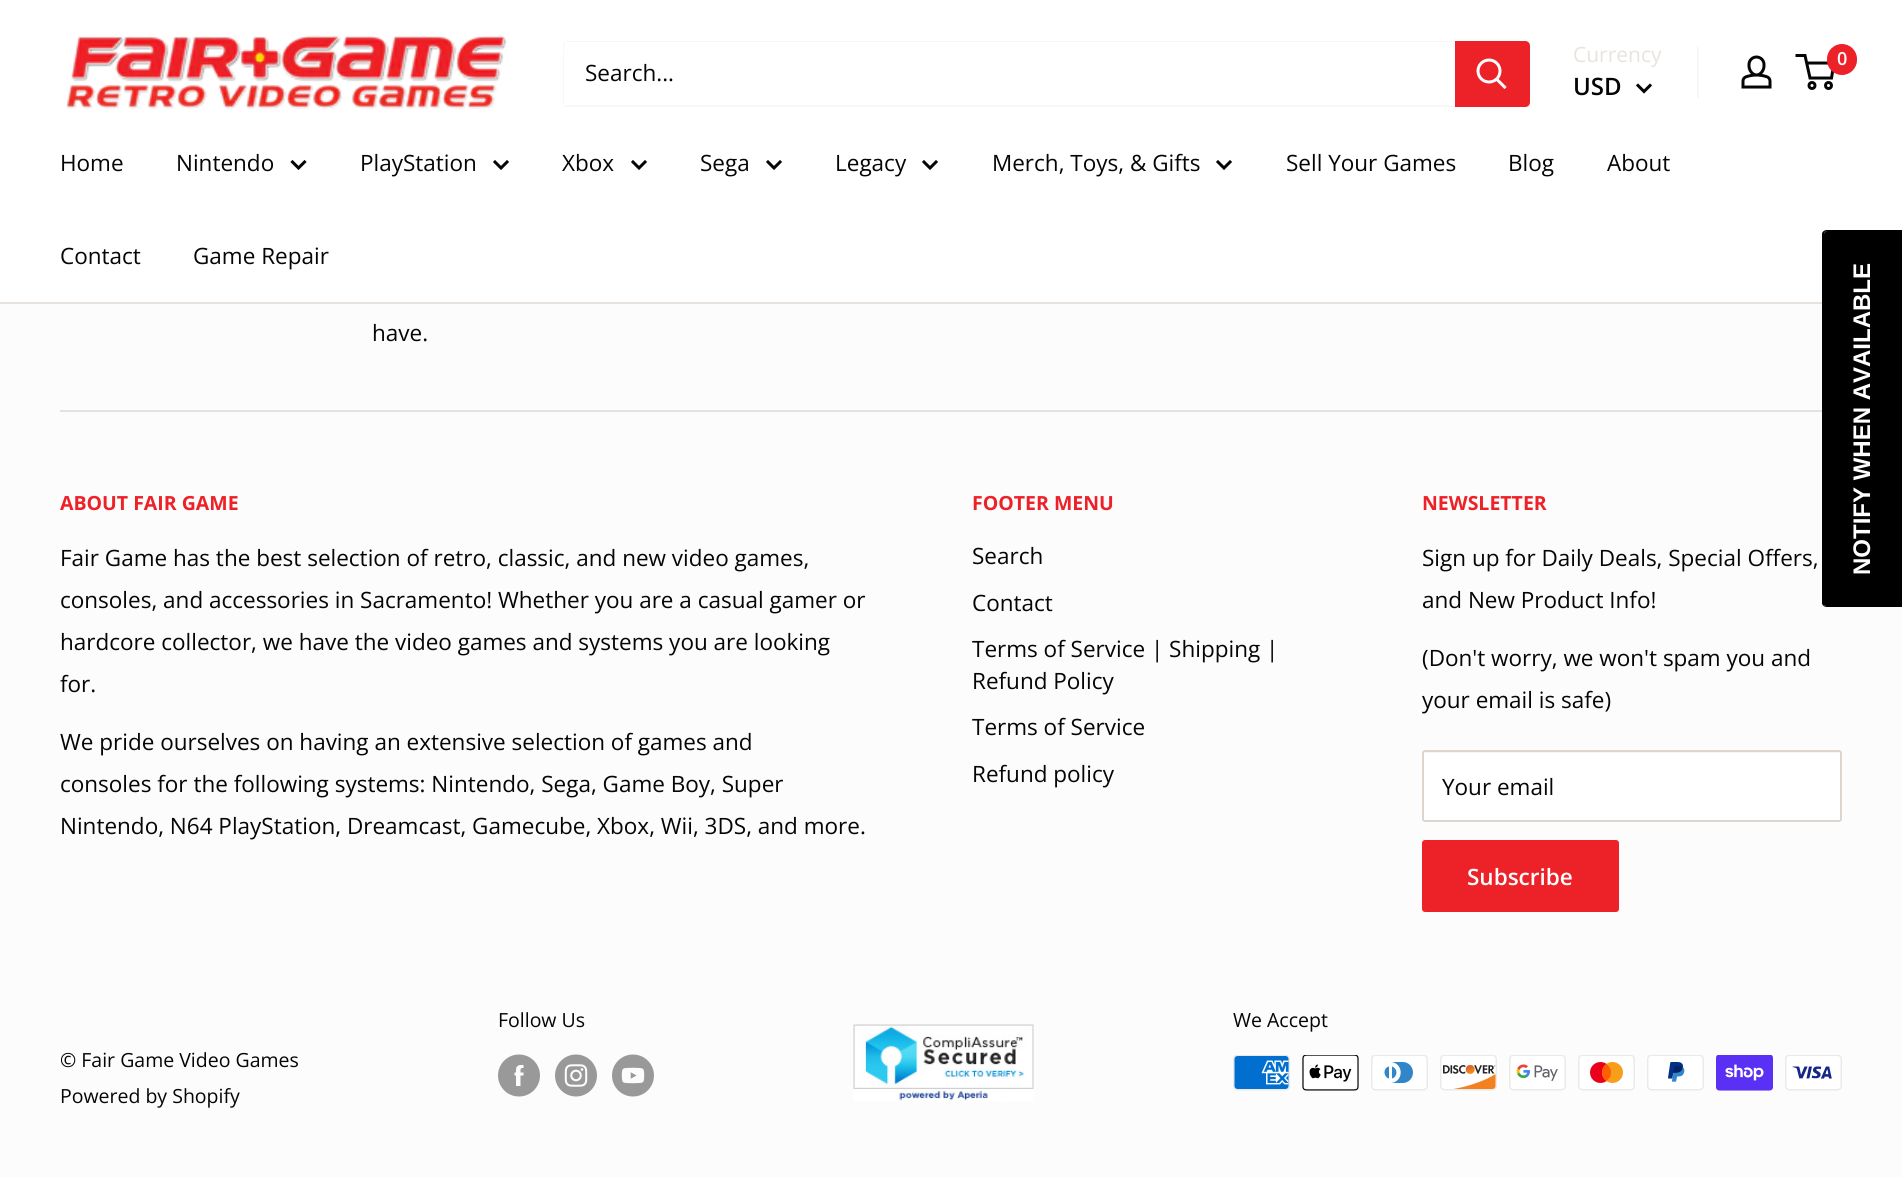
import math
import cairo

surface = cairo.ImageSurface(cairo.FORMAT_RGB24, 1902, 1177)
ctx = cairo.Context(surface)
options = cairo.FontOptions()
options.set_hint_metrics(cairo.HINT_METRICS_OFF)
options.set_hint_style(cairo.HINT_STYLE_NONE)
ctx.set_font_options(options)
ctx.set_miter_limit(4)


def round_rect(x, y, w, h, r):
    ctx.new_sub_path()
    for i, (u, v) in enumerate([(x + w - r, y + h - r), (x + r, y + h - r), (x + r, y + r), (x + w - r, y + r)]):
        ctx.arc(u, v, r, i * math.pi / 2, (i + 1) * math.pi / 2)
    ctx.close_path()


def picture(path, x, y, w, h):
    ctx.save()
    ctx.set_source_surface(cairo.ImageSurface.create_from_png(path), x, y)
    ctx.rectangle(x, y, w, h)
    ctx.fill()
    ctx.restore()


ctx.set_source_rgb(0.988, 0.988, 0.988)
ctx.paint()
ctx.set_source_rgb(1, 1, 1)
ctx.rectangle(0, 0, 1902, 302)
ctx.fill()
picture("img1.png", 66, 35, 441, 74)
ctx.set_source_rgb(0.973, 0.965, 0.961)
ctx.new_path()
ctx.move_to(564, 105)
ctx.curve_to(565, 106, 566, 107, 568, 107)
ctx.line_to(1525, 107)
ctx.curve_to(1528, 107, 1530, 105, 1530, 102)
ctx.line_to(1530, 46)
ctx.curve_to(1530, 44, 1529, 43, 1528, 42)
ctx.line_to(1528, 44)
ctx.line_to(1528, 100)
ctx.curve_to(1528, 103, 1526, 105, 1524, 105)
ctx.line_to(566, 105)
ctx.close_path()
ctx.fill()
ctx.new_path()
ctx.move_to(568, 42)
ctx.line_to(1528, 42)
ctx.curve_to(1527, 41, 1526, 41, 1525, 41)
ctx.line_to(568, 41)
ctx.curve_to(565, 41, 563, 43, 563, 46)
ctx.line_to(563, 102)
ctx.curve_to(563, 103, 563, 104, 564, 105)
ctx.line_to(564, 56)
ctx.curve_to(564, 54, 562, 42, 568, 42)
ctx.close_path()
ctx.fill()
ctx.select_font_face("Open Sans")
ctx.set_font_size(22.5)
ctx.set_source_rgb(0.02, 0.02, 0.02)
ctx.move_to(585, 81)
ctx.show_text("Search...")
ctx.set_source_rgb(0.929, 0.133, 0.157)
ctx.new_path()
ctx.move_to(1455, 41)
ctx.line_to(1525, 41)
ctx.curve_to(1528, 41, 1530, 43, 1530, 46)
ctx.line_to(1530, 102)
ctx.curve_to(1530, 105, 1528, 107, 1525, 107)
ctx.line_to(1455, 107)
ctx.close_path()
ctx.fill()
ctx.new_path()
ctx.move_to(1504.5, 87)
ctx.line_to(1497, 79.5)
ctx.set_source_rgb(1, 1, 1)
ctx.set_line_width(3)
ctx.set_line_cap(cairo.LINE_CAP_SQUARE)
ctx.stroke()
ctx.arc(1489, 71, 11, 0, 2 * math.pi)
ctx.set_line_cap(cairo.LINE_CAP_BUTT)
ctx.stroke()
ctx.set_font_size(21)
ctx.set_source_rgb(0.914, 0.886, 0.867)
ctx.move_to(1573, 62)
ctx.show_text("Currency")
ctx.set_source_rgb(0.973, 0.965, 0.961)
ctx.rectangle(1697, 47, 2, 51)
ctx.fill()
ctx.select_font_face("Open Sans SemiBold")
ctx.set_font_size(24)
ctx.set_source_rgb(0.02, 0.02, 0.02)
ctx.move_to(1573, 95)
ctx.show_text("USD")
ctx.new_path()
ctx.move_to(1650, 85.5)
ctx.line_to(1644, 91.5)
ctx.line_to(1638, 85.5)
ctx.set_line_cap(cairo.LINE_CAP_SQUARE)
ctx.stroke()
picture("img2.png", 1741, 55, 31, 34)
ctx.arc(1812, 85.5, 3, 0, 2 * math.pi)
ctx.set_line_cap(cairo.LINE_CAP_BUTT)
ctx.stroke()
ctx.arc(1828.5, 85.5, 3, 0, 2 * math.pi)
ctx.stroke()
ctx.new_path()
ctx.move_to(1806.5, 63)
ctx.line_to(1834, 63)
ctx.line_to(1831.5, 78)
ctx.line_to(1810, 78)
ctx.line_to(1805, 55.5)
ctx.line_to(1795.5, 55.5)
ctx.stroke()
ctx.set_source_rgb(0.929, 0.133, 0.157)
round_rect(1827, 44, 30, 31, 15)
ctx.fill()
ctx.set_font_size(18)
ctx.set_source_rgb(1, 1, 1)
ctx.move_to(1837, 65)
ctx.show_text("0")
ctx.set_source_rgb(0.906, 0.886, 0.871)
ctx.rectangle(0, 302, 1822, 2)
ctx.fill()
ctx.select_font_face("Open Sans")
ctx.set_font_size(22.5)
ctx.set_source_rgb(0.02, 0.02, 0.02)
ctx.move_to(60, 171)
ctx.show_text("Home")
ctx.move_to(176, 171)
ctx.show_text("Nintendo")
ctx.new_path()
ctx.move_to(304.5, 162)
ctx.line_to(298.5, 168)
ctx.line_to(292.5, 162)
ctx.set_line_cap(cairo.LINE_CAP_SQUARE)
ctx.stroke()
ctx.move_to(360, 171)
ctx.show_text("PlayStation")
ctx.new_path()
ctx.move_to(507, 162)
ctx.line_to(501, 168)
ctx.line_to(495, 162)
ctx.stroke()
ctx.move_to(562, 171)
ctx.show_text("Xbox")
ctx.new_path()
ctx.move_to(645, 162)
ctx.line_to(639, 168)
ctx.line_to(633, 162)
ctx.stroke()
ctx.move_to(700, 171)
ctx.show_text("Sega")
ctx.new_path()
ctx.move_to(780, 162)
ctx.line_to(774, 168)
ctx.line_to(768, 162)
ctx.stroke()
ctx.move_to(835, 171)
ctx.show_text("Legacy")
ctx.new_path()
ctx.move_to(936, 162)
ctx.line_to(930, 168)
ctx.line_to(924, 162)
ctx.stroke()
ctx.move_to(992, 171)
ctx.show_text("Merch, Toys, & Gifts")
ctx.new_path()
ctx.move_to(1230, 162)
ctx.line_to(1224, 168)
ctx.line_to(1218, 162)
ctx.stroke()
ctx.move_to(1286, 171)
ctx.show_text("Sell Your Games")
ctx.move_to(1508, 171)
ctx.show_text("Blog")
ctx.move_to(1607, 171)
ctx.show_text("About")
ctx.move_to(60, 264)
ctx.show_text("Contact")
ctx.move_to(193, 264)
ctx.show_text("Game Repair")
ctx.move_to(372, 341)
ctx.show_text("have.")
ctx.set_source_rgb(0, 0, 0)
ctx.new_path()
ctx.move_to(1824, 603)
ctx.line_to(1824, 234)
ctx.curve_to(1824, 233, 1825, 231, 1827, 231)
ctx.line_to(1902, 231)
ctx.line_to(1902, 606)
ctx.line_to(1826, 606)
ctx.line_to(1824, 605)
ctx.close_path()
ctx.fill()
ctx.set_fill_rule(cairo.FILL_RULE_EVEN_ODD)
ctx.new_path()
ctx.move_to(1822, 603)
ctx.line_to(1822, 234)
ctx.curve_to(1822, 232, 1824, 230, 1827, 230)
ctx.line_to(1902, 230)
ctx.line_to(1902, 607)
ctx.line_to(1827, 607)
ctx.curve_to(1824, 607, 1822, 605, 1822, 603)
ctx.close_path()
ctx.move_to(1824, 603)
ctx.line_to(1824, 234)
ctx.curve_to(1824, 233, 1825, 231, 1827, 231)
ctx.line_to(1902, 231)
ctx.line_to(1902, 606)
ctx.line_to(1826, 606)
ctx.line_to(1824, 605)
ctx.close_path()
ctx.fill()
ctx.select_font_face("Liberation Sans", cairo.FONT_SLANT_NORMAL, cairo.FONT_WEIGHT_BOLD)
ctx.set_font_size(24)
ctx.set_source_rgb(1, 1, 1)
ctx.save()
ctx.translate(1870, 575)
ctx.rotate(-90 * math.pi / 180)
ctx.move_to(0, 0)
ctx.show_text("NOTIFY WHEN AVAILABLE")
ctx.restore()
ctx.set_source_rgb(0.906, 0.886, 0.871)
ctx.rectangle(60, 410, 1762, 2)
ctx.fill()
ctx.select_font_face("Open Sans", cairo.FONT_SLANT_NORMAL, cairo.FONT_WEIGHT_BOLD)
ctx.set_font_size(19.5)
ctx.set_source_rgb(0.929, 0.133, 0.157)
ctx.move_to(60, 510)
ctx.show_text("ABOUT FAIR GAME")
ctx.select_font_face("Open Sans")
ctx.set_font_size(22.5)
ctx.set_source_rgb(0.02, 0.02, 0.02)
ctx.move_to(60, 566)
ctx.show_text("Fair Game has the best selection of retro, classic, and new video games,")
ctx.move_to(60, 608)
ctx.show_text("consoles, and accessories in Sacramento! Whether you are a casual gamer or")
ctx.move_to(60, 650)
ctx.show_text("hardcore collector, we have the video games and systems you are looking")
ctx.move_to(60, 692)
ctx.show_text("for.")
ctx.move_to(60, 750)
ctx.show_text("We pride ourselves on having an extensive selection of games and")
ctx.move_to(60, 792)
ctx.show_text("consoles for the following systems: Nintendo, Sega, Game Boy, Super")
ctx.move_to(60, 834)
ctx.show_text("Nintendo, N64 PlayStation, Dreamcast, Gamecube, Xbox, Wii, 3DS, and more.")
ctx.select_font_face("Open Sans", cairo.FONT_SLANT_NORMAL, cairo.FONT_WEIGHT_BOLD)
ctx.set_font_size(19.5)
ctx.set_source_rgb(0.929, 0.133, 0.157)
ctx.move_to(972, 510)
ctx.show_text("FOOTER MENU")
ctx.select_font_face("Open Sans")
ctx.set_font_size(22.5)
ctx.set_source_rgb(0.02, 0.02, 0.02)
ctx.move_to(972, 564)
ctx.show_text("Search")
ctx.move_to(972, 611)
ctx.show_text("Contact")
ctx.move_to(972, 657)
ctx.show_text("Terms of Service | Shipping |")
ctx.move_to(972, 689)
ctx.show_text("Refund Policy")
ctx.move_to(972, 735)
ctx.show_text("Terms of Service")
ctx.move_to(972, 782)
ctx.show_text("Refund policy")
ctx.select_font_face("Open Sans", cairo.FONT_SLANT_NORMAL, cairo.FONT_WEIGHT_BOLD)
ctx.set_font_size(19.5)
ctx.set_source_rgb(0.929, 0.133, 0.157)
ctx.move_to(1422, 510)
ctx.show_text("NEWSLETTER")
ctx.select_font_face("Open Sans")
ctx.set_font_size(22.5)
ctx.set_source_rgb(0.02, 0.02, 0.02)
ctx.move_to(1422, 566)
ctx.show_text("Sign up for Daily Deals, Special Offers,")
ctx.move_to(1422, 608)
ctx.show_text("and New Product Info!")
ctx.move_to(1422, 666)
ctx.show_text("(Don't worry, we won't spam you and")
ctx.move_to(1422, 708)
ctx.show_text("your email is safe)")
ctx.set_source_rgb(1, 1, 1)
round_rect(1422, 750, 420, 72, 3)
ctx.fill()
ctx.set_source_rgb(0.965, 0.961, 0.953)
ctx.set_fill_rule(cairo.FILL_RULE_WINDING)
ctx.new_path()
ctx.move_to(1425, 753)
ctx.line_to(1839, 753)
ctx.curve_to(1840, 753, 1840, 754, 1840, 754)
ctx.line_to(1840, 821)
ctx.curve_to(1841, 821, 1841, 820, 1841, 820)
ctx.line_to(1841, 754)
ctx.curve_to(1841, 753, 1840, 752, 1840, 752)
ctx.line_to(1426, 752)
ctx.curve_to(1425, 752, 1424, 753, 1424, 754)
ctx.close_path()
ctx.fill()
round_rect(1423, 751, 418, 70, 2)
ctx.set_source_rgb(0.863, 0.835, 0.812)
ctx.set_line_width(2)
ctx.set_line_cap(cairo.LINE_CAP_BUTT)
ctx.stroke()
ctx.set_source_rgb(0.02, 0.02, 0.02)
ctx.move_to(1442, 795)
ctx.show_text("Your email")
ctx.set_source_rgb(0.929, 0.133, 0.157)
round_rect(1422, 840, 197, 72, 3)
ctx.fill()
ctx.select_font_face("Open Sans SemiBold")
ctx.set_source_rgb(1, 1, 1)
ctx.move_to(1467, 885)
ctx.show_text("Subscribe")
ctx.select_font_face("Open Sans")
ctx.set_font_size(19.5)
ctx.set_source_rgb(0.02, 0.02, 0.02)
ctx.move_to(60, 1067)
ctx.show_text("© Fair Game Video Games")
ctx.move_to(60, 1103)
ctx.show_text("Powered by Shopify")
ctx.move_to(498, 1027)
ctx.show_text("Follow Us")
picture("img3.png", 498, 1054, 42, 43)
picture("img4.png", 555, 1054, 42, 43)
picture("img5.png", 612, 1054, 42, 43)
picture("img6.png", 853, 1024, 181, 78)
ctx.move_to(1233, 1027)
ctx.show_text("We Accept")
picture("img7.png", 1233, 1055, 57, 36)
picture("img8.png", 1302, 1055, 57, 36)
picture("img9.png", 1371, 1055, 57, 36)
picture("img10.png", 1440, 1055, 57, 36)
picture("img11.png", 1509, 1055, 57, 36)
picture("img12.png", 1578, 1055, 57, 36)
picture("img13.png", 1647, 1055, 57, 36)
picture("img14.png", 1716, 1055, 57, 36)
picture("img15.png", 1785, 1055, 57, 36)
surface.write_to_png("page.png")
